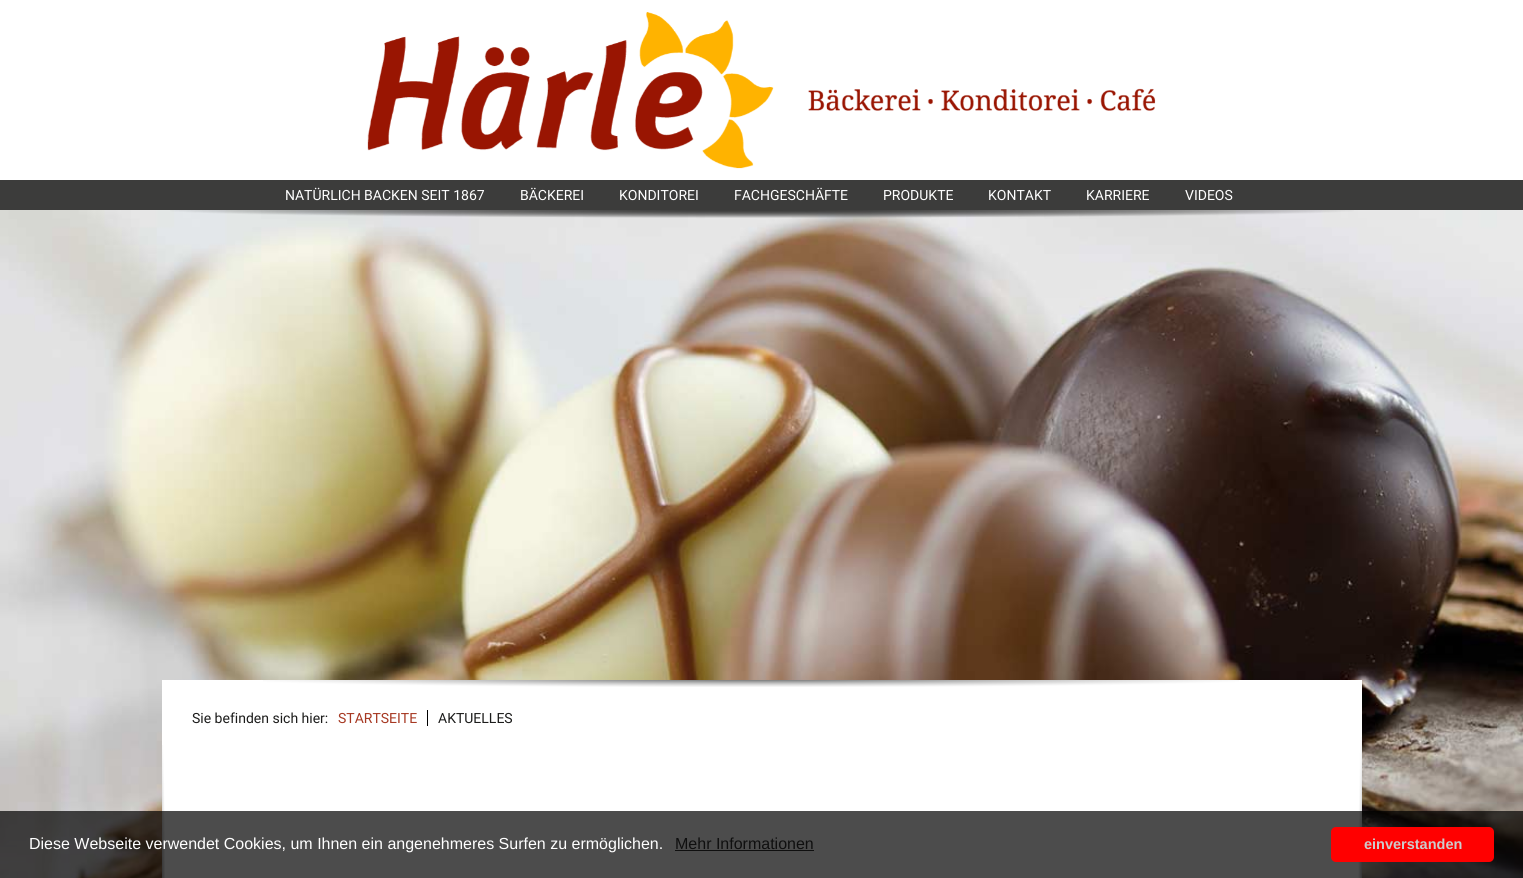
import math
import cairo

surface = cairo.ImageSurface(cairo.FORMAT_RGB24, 1523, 878)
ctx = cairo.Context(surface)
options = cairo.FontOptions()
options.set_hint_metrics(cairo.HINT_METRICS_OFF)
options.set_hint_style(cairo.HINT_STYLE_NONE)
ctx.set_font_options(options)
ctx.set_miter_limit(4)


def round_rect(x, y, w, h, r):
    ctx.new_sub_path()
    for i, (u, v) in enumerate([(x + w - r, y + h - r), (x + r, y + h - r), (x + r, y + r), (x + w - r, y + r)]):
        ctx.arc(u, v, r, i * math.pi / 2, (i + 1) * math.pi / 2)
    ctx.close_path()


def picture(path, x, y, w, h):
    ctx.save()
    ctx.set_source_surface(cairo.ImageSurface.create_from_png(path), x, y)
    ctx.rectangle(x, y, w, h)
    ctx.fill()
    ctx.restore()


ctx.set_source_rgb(1, 1, 1)
ctx.paint()
picture("img1.png", 367, 12, 789, 157)
ctx.set_source_rgb(0.235, 0.235, 0.231)
ctx.rectangle(0, 180, 1523, 30)
ctx.fill()
ctx.select_font_face("Roboto")
ctx.set_font_size(14)
ctx.set_source_rgb(1, 1, 1)
ctx.move_to(285, 200)
ctx.show_text("NATÜRLICH BACKEN SEIT 1867")
ctx.move_to(520, 200)
ctx.show_text("BÄCKEREI")
ctx.move_to(619, 200)
ctx.show_text("KONDITOREI")
ctx.move_to(734, 200)
ctx.show_text("FACHGESCHÄFTE")
ctx.move_to(883, 200)
ctx.show_text("PRODUKTE")
ctx.move_to(988, 200)
ctx.show_text("KONTAKT")
ctx.move_to(1086, 200)
ctx.show_text("KARRIERE")
ctx.move_to(1185, 200)
ctx.show_text("VIDEOS")
picture("img3.png", 0, 210, 1523, 668)
picture("img2.png", 170, 210, 1184, 8)
ctx.rectangle(162, 680, 1200, 198)
ctx.fill()
picture("img4.png", 263, 680, 976, 7)
ctx.set_source_rgb(0.11, 0.11, 0.106)
ctx.move_to(192, 723)
ctx.show_text("Sie befinden sich hier:")
ctx.set_source_rgb(0, 0, 0)
ctx.rectangle(427, 710, 1, 16)
ctx.fill()
ctx.set_source_rgb(0.651, 0.22, 0.133)
ctx.move_to(338, 723)
ctx.show_text("STARTSEITE")
ctx.set_source_rgb(0.11, 0.11, 0.106)
ctx.move_to(438, 723)
ctx.show_text("AKTUELLES")
picture("img5.png", 162, 745, 3, 133)
picture("img6.png", 1358, 737, 4, 141)
ctx.set_source_rgba(0, 0, 0, 0.7)
ctx.rectangle(0, 811, 1523, 67)
ctx.fill()
ctx.select_font_face("Liberation Sans")
ctx.set_font_size(16)
ctx.set_source_rgb(1, 1, 1)
ctx.move_to(29, 849)
ctx.show_text("Diese Webseite verwendet Cookies, um Ihnen ein angenehmeres Surfen zu ermöglichen.")
ctx.set_source_rgb(0.059, 0.059, 0.059)
ctx.move_to(675, 849)
ctx.show_text("Mehr Informationen")
ctx.rectangle(675, 850, 139, 1)
ctx.fill()
ctx.set_source_rgb(1, 0, 0)
round_rect(1331, 827, 163, 35, 5)
ctx.fill()
ctx.select_font_face("Liberation Sans", cairo.FONT_SLANT_NORMAL, cairo.FONT_WEIGHT_BOLD)
ctx.set_font_size(14.5)
ctx.set_source_rgb(0.8, 0.8, 0.8)
ctx.move_to(1364, 849)
ctx.show_text("einverstanden")
surface.write_to_png("page.png")
